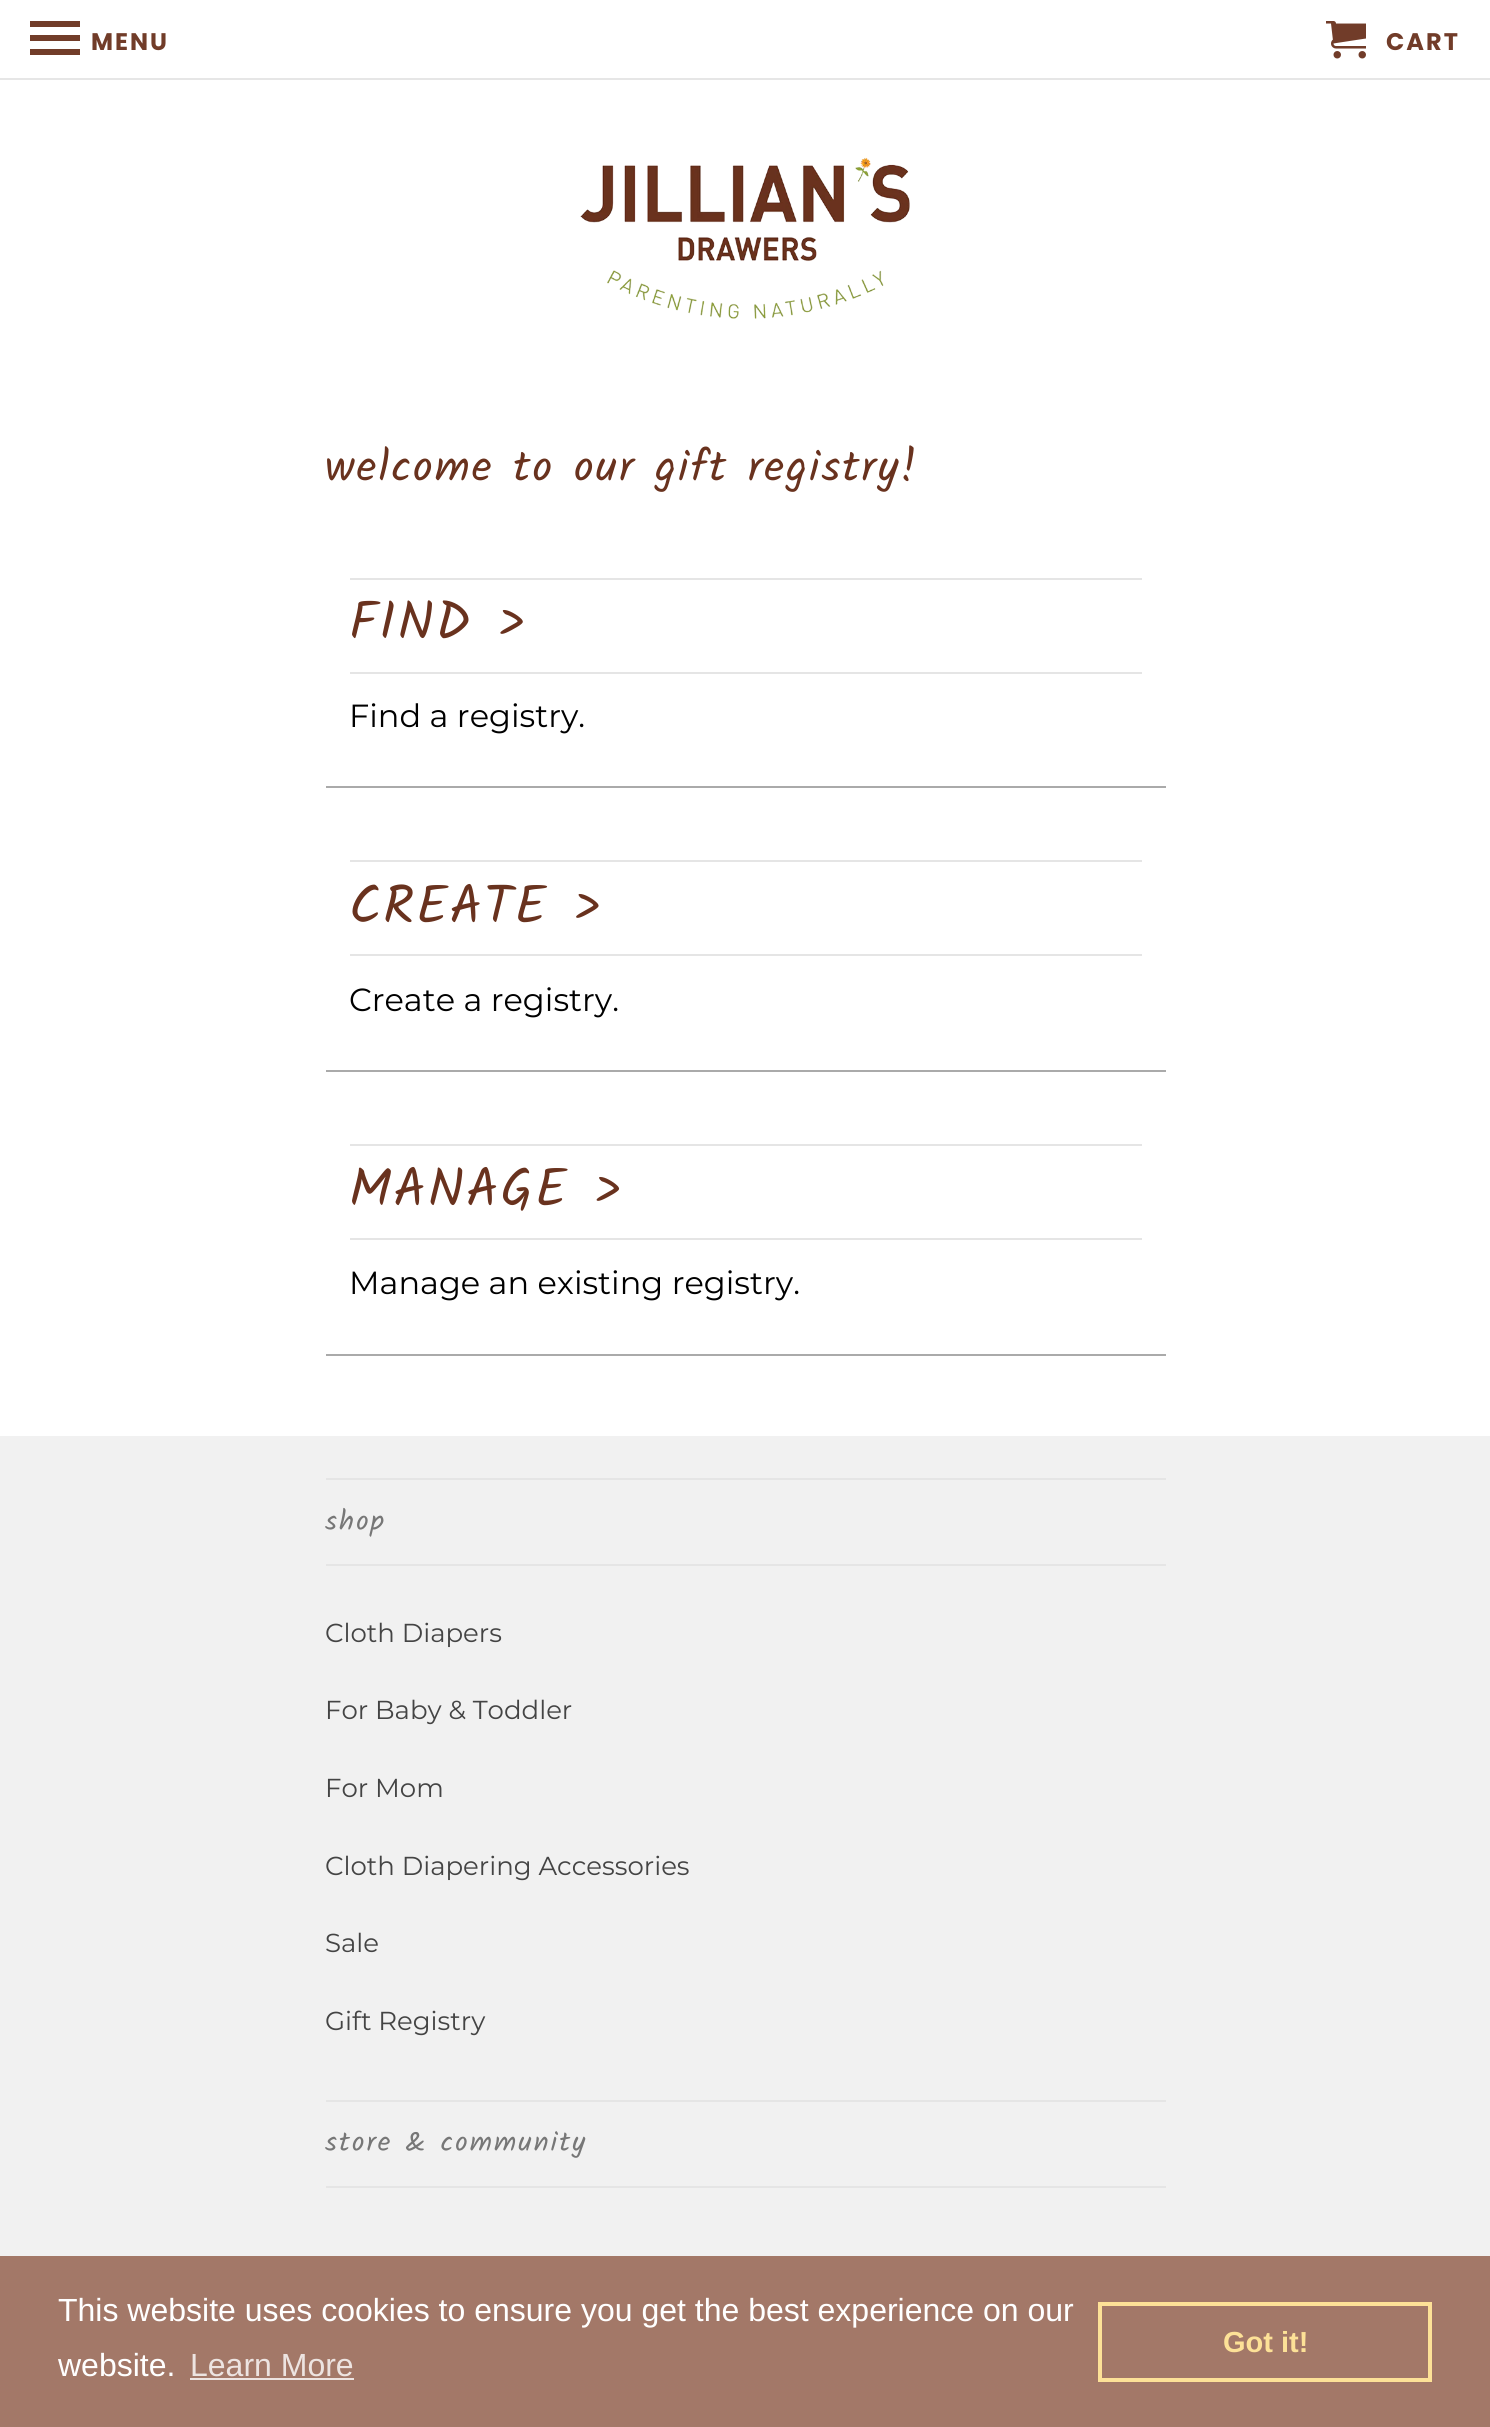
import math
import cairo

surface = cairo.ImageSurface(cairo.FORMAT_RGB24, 1490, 2427)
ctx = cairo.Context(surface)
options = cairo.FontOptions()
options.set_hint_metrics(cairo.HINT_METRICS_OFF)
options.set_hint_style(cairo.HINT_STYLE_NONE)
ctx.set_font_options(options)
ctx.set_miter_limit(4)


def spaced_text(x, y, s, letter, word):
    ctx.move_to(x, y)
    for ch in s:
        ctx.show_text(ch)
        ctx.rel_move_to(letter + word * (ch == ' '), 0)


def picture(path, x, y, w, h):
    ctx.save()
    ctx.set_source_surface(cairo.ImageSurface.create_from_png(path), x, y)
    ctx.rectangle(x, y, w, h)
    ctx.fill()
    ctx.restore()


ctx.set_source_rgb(1, 1, 1)
ctx.paint()
ctx.set_source_rgb(0.902, 0.902, 0.902)
ctx.rectangle(0, 78, 1490, 2)
ctx.fill()
ctx.set_source_rgb(0.443, 0.235, 0.161)
ctx.new_path()
ctx.move_to(30, 55)
ctx.line_to(80, 55)
ctx.line_to(80, 49)
ctx.line_to(30, 49)
ctx.close_path()
ctx.move_to(30, 41)
ctx.line_to(80, 41)
ctx.line_to(80, 35)
ctx.line_to(30, 35)
ctx.close_path()
ctx.move_to(30, 21)
ctx.line_to(30, 27)
ctx.line_to(80, 27)
ctx.line_to(80, 21)
ctx.close_path()
ctx.fill()
ctx.select_font_face("Poppins", cairo.FONT_SLANT_NORMAL, cairo.FONT_WEIGHT_BOLD)
ctx.set_font_size(24)
spaced_text(91, 50, "MENU", 2, 0)
picture("img1.png", 1326, 21, 40, 38)
spaced_text(1386, 50, "CART", 2, 0)
picture("img2.png", 580, 157, 330, 162)
ctx.select_font_face("Kalam")
ctx.set_font_size(44)
ctx.set_source_rgb(0.412, 0.196, 0.118)
spaced_text(325, 481, "welcome to our gift registry!", 2, 0)
ctx.set_source_rgb(0.667, 0.667, 0.667)
ctx.rectangle(326, 786, 840, 2)
ctx.fill()
ctx.set_source_rgb(0.898, 0.898, 0.898)
ctx.rectangle(350, 578, 792, 2)
ctx.fill()
ctx.rectangle(350, 672, 792, 2)
ctx.fill()
ctx.set_font_size(53.5)
ctx.set_source_rgb(0.412, 0.196, 0.118)
spaced_text(349, 639, "FIND >", 2, 0)
ctx.select_font_face("Montserrat Thin")
ctx.set_font_size(32)
ctx.set_source_rgb(0, 0, 0)
ctx.move_to(349, 727)
ctx.show_text("Find a registry.")
ctx.set_source_rgb(0.667, 0.667, 0.667)
ctx.rectangle(326, 1070, 840, 2)
ctx.fill()
ctx.set_source_rgb(0.898, 0.898, 0.898)
ctx.rectangle(350, 860, 792, 2)
ctx.fill()
ctx.rectangle(350, 954, 792, 2)
ctx.fill()
ctx.select_font_face("Kalam")
ctx.set_font_size(53.5)
ctx.set_source_rgb(0.412, 0.196, 0.118)
spaced_text(349, 923, "CREATE >", 2, 0)
ctx.select_font_face("Montserrat Thin")
ctx.set_font_size(32)
ctx.set_source_rgb(0, 0, 0)
ctx.move_to(349, 1011)
ctx.show_text("Create a registry.")
ctx.set_source_rgb(0.667, 0.667, 0.667)
ctx.rectangle(326, 1354, 840, 2)
ctx.fill()
ctx.set_source_rgb(0.898, 0.898, 0.898)
ctx.rectangle(350, 1144, 792, 2)
ctx.fill()
ctx.rectangle(350, 1238, 792, 2)
ctx.fill()
ctx.select_font_face("Kalam")
ctx.set_font_size(53.5)
ctx.set_source_rgb(0.412, 0.196, 0.118)
spaced_text(349, 1206, "MANAGE >", 2, 0)
ctx.select_font_face("Montserrat Thin")
ctx.set_font_size(32)
ctx.set_source_rgb(0, 0, 0)
ctx.move_to(349, 1294)
ctx.show_text("Manage an existing registry.")
ctx.set_source_rgb(0.945, 0.945, 0.945)
ctx.rectangle(0, 1436, 1490, 820)
ctx.fill()
ctx.set_source_rgb(0.898, 0.898, 0.898)
ctx.rectangle(326, 1478, 840, 2)
ctx.fill()
ctx.rectangle(326, 1564, 840, 2)
ctx.fill()
ctx.select_font_face("Kalam")
ctx.set_font_size(28)
ctx.set_source_rgb(0.467, 0.467, 0.467)
spaced_text(325, 1530, "shop", 2, 0)
ctx.select_font_face("Montserrat Thin")
ctx.set_font_size(26)
ctx.set_source_rgb(0.267, 0.267, 0.267)
ctx.move_to(325, 1642)
ctx.show_text("Cloth Diapers")
ctx.move_to(325, 1719)
ctx.show_text("For Baby & Toddler")
ctx.move_to(325, 1797)
ctx.show_text("For Mom")
ctx.move_to(325, 1875)
ctx.show_text("Cloth Diapering Accessories")
ctx.move_to(325, 1952)
ctx.show_text("Sale")
ctx.move_to(325, 2030)
ctx.show_text("Gift Registry")
ctx.set_source_rgb(0.898, 0.898, 0.898)
ctx.rectangle(326, 2100, 840, 2)
ctx.fill()
ctx.rectangle(326, 2186, 840, 2)
ctx.fill()
ctx.select_font_face("Kalam")
ctx.set_font_size(28)
ctx.set_source_rgb(0.467, 0.467, 0.467)
spaced_text(325, 2151, "store & community", 2, 0)
ctx.set_source_rgb(0.639, 0.471, 0.408)
ctx.rectangle(0, 2256, 1490, 171)
ctx.fill()
ctx.select_font_face("Liberation Sans")
ctx.set_font_size(32)
ctx.set_source_rgb(1, 1, 1)
ctx.move_to(58, 2321)
ctx.show_text("This website uses cookies to ensure you get the best experience on our")
ctx.move_to(58, 2376)
ctx.show_text("website.")
ctx.set_source_rgb(0.929, 0.894, 0.882)
ctx.move_to(190, 2376)
ctx.show_text("Learn More")
ctx.rectangle(190, 2378, 164, 2)
ctx.fill()
ctx.rectangle(1100, 2304, 330, 76)
ctx.set_source_rgb(0.992, 0.882, 0.592)
ctx.set_line_width(4)
ctx.stroke()
ctx.select_font_face("Liberation Sans", cairo.FONT_SLANT_NORMAL, cairo.FONT_WEIGHT_BOLD)
ctx.set_font_size(29)
ctx.move_to(1223, 2352)
ctx.show_text("Got it!")
surface.write_to_png("page.png")
